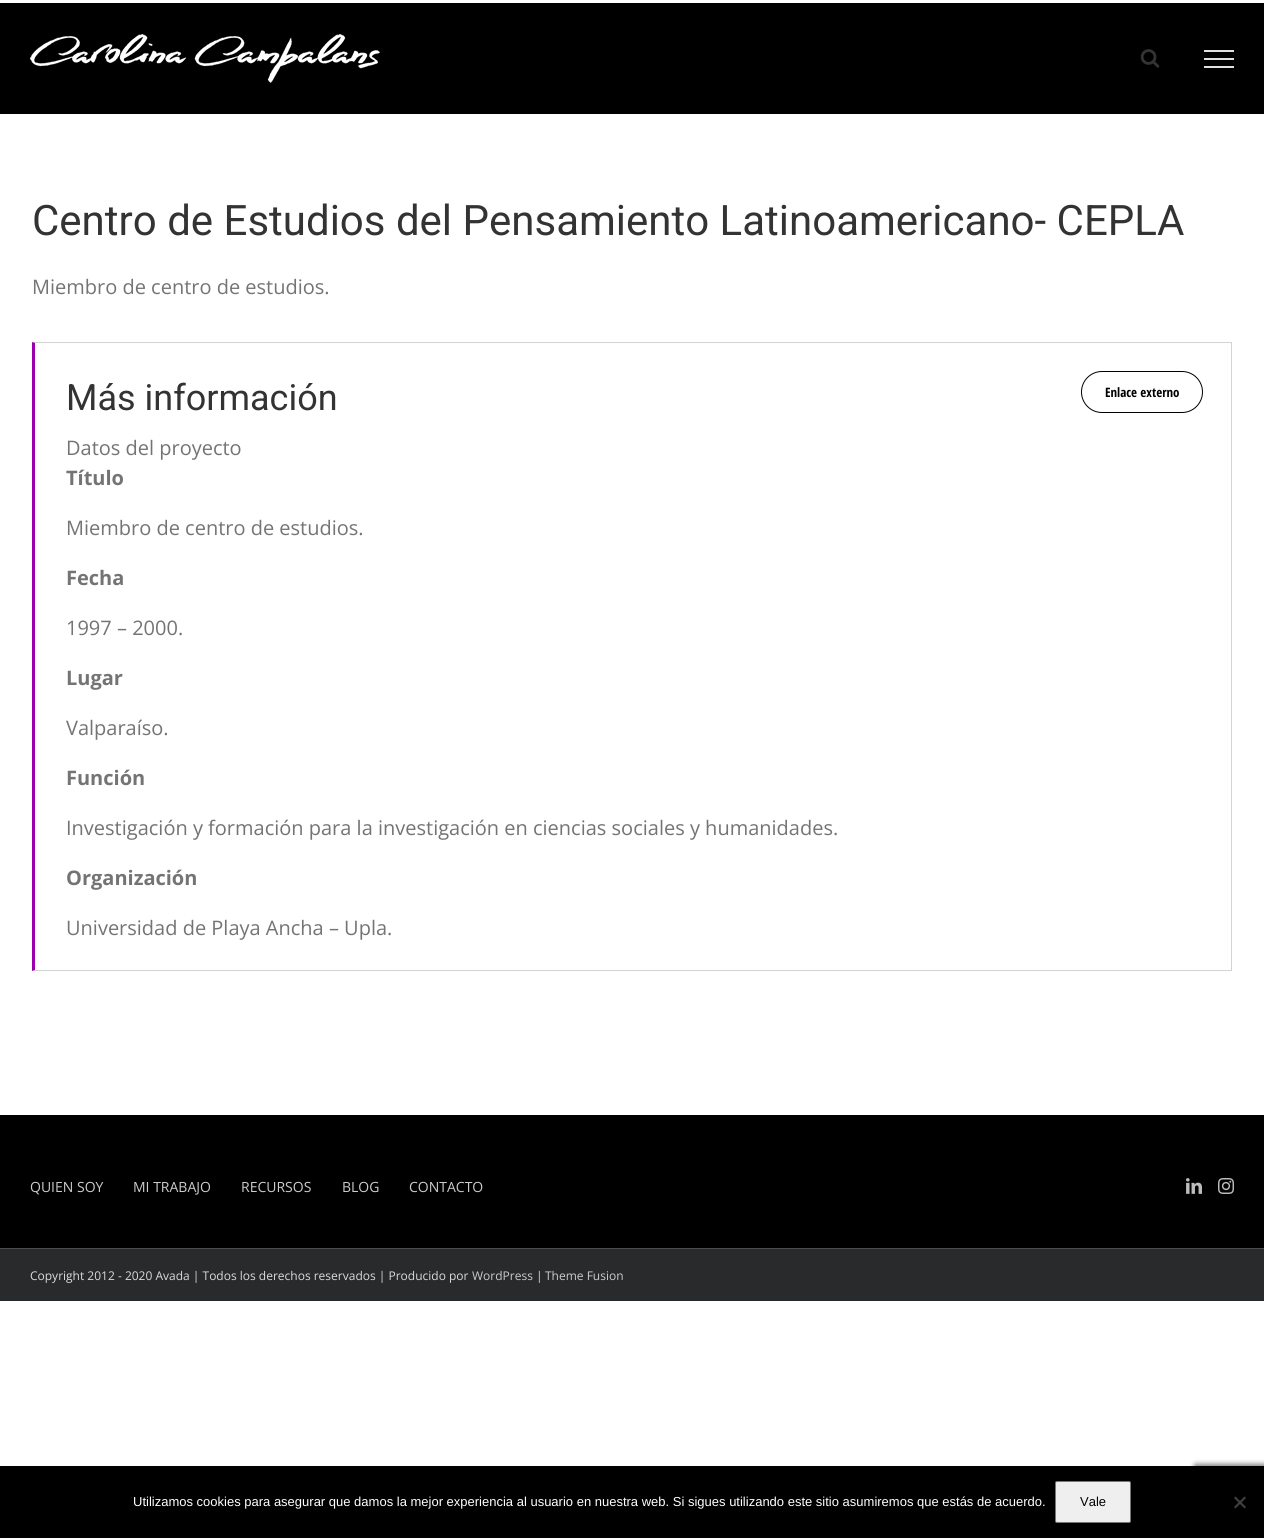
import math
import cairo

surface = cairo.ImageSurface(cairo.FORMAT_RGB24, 1264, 1538)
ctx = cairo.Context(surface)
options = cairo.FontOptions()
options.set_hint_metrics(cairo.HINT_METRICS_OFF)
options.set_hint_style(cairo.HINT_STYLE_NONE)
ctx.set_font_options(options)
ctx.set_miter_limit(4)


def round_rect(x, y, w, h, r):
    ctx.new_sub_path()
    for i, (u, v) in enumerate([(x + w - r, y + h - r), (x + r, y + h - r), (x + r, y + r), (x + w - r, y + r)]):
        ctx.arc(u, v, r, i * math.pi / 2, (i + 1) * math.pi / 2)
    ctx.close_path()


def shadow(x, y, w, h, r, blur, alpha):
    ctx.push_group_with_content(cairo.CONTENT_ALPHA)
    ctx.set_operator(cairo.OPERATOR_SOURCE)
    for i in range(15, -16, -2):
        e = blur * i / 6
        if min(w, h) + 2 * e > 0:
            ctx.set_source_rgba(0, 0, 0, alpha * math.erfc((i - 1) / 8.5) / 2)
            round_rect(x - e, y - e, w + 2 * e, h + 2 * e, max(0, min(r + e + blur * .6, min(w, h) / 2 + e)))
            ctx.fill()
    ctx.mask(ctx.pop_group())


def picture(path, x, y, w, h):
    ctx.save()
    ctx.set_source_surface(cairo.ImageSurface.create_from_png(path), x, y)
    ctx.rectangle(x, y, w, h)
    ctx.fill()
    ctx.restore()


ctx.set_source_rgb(1, 1, 1)
ctx.paint()
ctx.set_source_rgb(0, 0, 0)
ctx.rectangle(0, 3, 1264, 111)
ctx.fill()
picture("img1.png", 30, 34, 350, 49)
picture("img2.png", 1140, 49, 20, 19)
ctx.set_source_rgb(0.878, 0.878, 0.878)
ctx.rectangle(1204, 50, 30, 2)
ctx.fill()
ctx.rectangle(1204, 58, 30, 2)
ctx.fill()
ctx.rectangle(1204, 66, 30, 2)
ctx.fill()
ctx.select_font_face("Roboto")
ctx.set_font_size(42)
ctx.set_source_rgb(0.2, 0.2, 0.2)
ctx.move_to(32, 235)
ctx.show_text("Centro de Estudios del Pensamiento Latinoamericano- CEPLA")
ctx.select_font_face("Open Sans")
ctx.set_font_size(20)
ctx.set_source_rgb(0.455, 0.455, 0.455)
ctx.move_to(32, 294)
ctx.show_text("Miembro de centro de estudios.")
ctx.set_source_rgb(0.827, 0.827, 0.827)
ctx.new_path()
ctx.move_to(32, 342)
ctx.line_to(1232, 342)
ctx.line_to(1231, 343)
ctx.line_to(35, 343)
ctx.close_path()
ctx.fill()
ctx.rectangle(1231, 342, 1, 629)
ctx.fill()
ctx.new_path()
ctx.move_to(1232, 971)
ctx.line_to(32, 971)
ctx.line_to(35, 970)
ctx.line_to(1231, 970)
ctx.close_path()
ctx.fill()
ctx.set_source_rgb(0.608, 0, 0.686)
ctx.new_path()
ctx.move_to(32, 971)
ctx.line_to(32, 342)
ctx.line_to(35, 343)
ctx.line_to(35, 970)
ctx.close_path()
ctx.fill()
ctx.select_font_face("Roboto")
ctx.set_font_size(36)
ctx.set_source_rgb(0.2, 0.2, 0.2)
ctx.move_to(66, 410)
ctx.show_text("Más información")
round_rect(1081.5, 371.5, 121, 41, 20.5)
ctx.set_source_rgb(0, 0, 0)
ctx.set_line_width(1)
ctx.stroke()
ctx.select_font_face("Open Sans Condensed", cairo.FONT_SLANT_NORMAL, cairo.FONT_WEIGHT_BOLD)
ctx.set_font_size(13)
ctx.move_to(1105, 397)
ctx.show_text("Enlace externo")
ctx.select_font_face("Open Sans")
ctx.set_font_size(20)
ctx.set_source_rgb(0.455, 0.455, 0.455)
ctx.move_to(66, 455)
ctx.show_text("Datos del proyecto")
ctx.select_font_face("Open Sans", cairo.FONT_SLANT_NORMAL, cairo.FONT_WEIGHT_BOLD)
ctx.move_to(66, 485)
ctx.show_text("Título")
ctx.select_font_face("Open Sans")
ctx.move_to(66, 535)
ctx.show_text("Miembro de centro de estudios.")
ctx.select_font_face("Open Sans", cairo.FONT_SLANT_NORMAL, cairo.FONT_WEIGHT_BOLD)
ctx.move_to(66, 585)
ctx.show_text("Fecha")
ctx.select_font_face("Open Sans")
ctx.move_to(66, 635)
ctx.show_text("1997 – 2000.")
ctx.select_font_face("Open Sans", cairo.FONT_SLANT_NORMAL, cairo.FONT_WEIGHT_BOLD)
ctx.move_to(66, 685)
ctx.show_text("Lugar")
ctx.select_font_face("Open Sans")
ctx.move_to(66, 735)
ctx.show_text("Valparaíso.")
ctx.select_font_face("Open Sans", cairo.FONT_SLANT_NORMAL, cairo.FONT_WEIGHT_BOLD)
ctx.move_to(66, 785)
ctx.show_text("Función")
ctx.select_font_face("Open Sans")
ctx.move_to(66, 835)
ctx.show_text("Investigación y formación para la investigación en ciencias sociales y humanidades.")
ctx.select_font_face("Open Sans", cairo.FONT_SLANT_NORMAL, cairo.FONT_WEIGHT_BOLD)
ctx.move_to(66, 885)
ctx.show_text("Organización")
ctx.select_font_face("Open Sans")
ctx.move_to(66, 935)
ctx.show_text("Universidad de Playa Ancha – Upla.")
ctx.set_source_rgb(0, 0, 0)
ctx.rectangle(0, 1115, 1264, 133)
ctx.fill()
ctx.set_font_size(14)
ctx.set_source_rgb(0.8, 0.8, 0.8)
ctx.move_to(30, 1192)
ctx.show_text("QUIEN SOY")
ctx.move_to(133, 1192)
ctx.show_text("MI TRABAJO")
ctx.move_to(241, 1192)
ctx.show_text("RECURSOS")
ctx.move_to(342, 1192)
ctx.show_text("BLOG")
ctx.move_to(409, 1192)
ctx.show_text("CONTACTO")
picture("img3.png", 1186, 1178, 16, 16)
picture("img4.png", 1218, 1178, 16, 16)
ctx.set_source_rgb(0.157, 0.165, 0.169)
ctx.rectangle(0, 1249, 1264, 52)
ctx.fill()
ctx.set_source_rgb(0.294, 0.298, 0.302)
ctx.rectangle(0, 1248, 1264, 1)
ctx.fill()
ctx.set_font_size(12)
ctx.set_source_rgb(0.863, 0.855, 0.859)
ctx.move_to(30, 1280)
ctx.show_text("Copyright 2012 - 2020 Avada | Todos los derechos reservados | Producido por")
ctx.set_source_rgb(0.8, 0.8, 0.8)
ctx.move_to(472, 1280)
ctx.show_text("WordPress")
ctx.set_source_rgb(0.863, 0.855, 0.859)
ctx.move_to(536, 1280)
ctx.show_text("|")
ctx.set_source_rgb(0.8, 0.8, 0.8)
ctx.move_to(545, 1280)
ctx.show_text("Theme Fusion")
ctx.set_source_rgb(0.502, 0.502, 0.502)
shadow(1194, 1464, 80, 60, 2, 2.5, 1)
ctx.set_source_rgb(0, 0, 0)
ctx.rectangle(0, 1466, 1264, 72)
ctx.fill()
ctx.select_font_face("Liberation Sans")
ctx.set_font_size(13)
ctx.set_source_rgb(1, 1, 1)
ctx.move_to(133, 1506)
ctx.show_text("Utilizamos cookies para asegurar que damos la mejor experiencia al usuario en nuestra web. Si sigues utilizando este sitio asumiremos que estás de acuerdo.")
ctx.set_source_rgb(0.937, 0.937, 0.937)
round_rect(1055.5, 1481.5, 75, 41, 1.5)
ctx.fill_preserve()
ctx.set_source_rgb(0.463, 0.463, 0.463)
ctx.stroke()
ctx.set_source_rgb(0, 0, 0)
ctx.move_to(1080, 1506)
ctx.show_text("Vale")
ctx.set_source_rgb(0.251, 0.251, 0.251)
ctx.new_path()
ctx.move_to(1244.5, 1496.5)
ctx.line_to(1246, 1498)
ctx.line_to(1235.5, 1508.5)
ctx.line_to(1234, 1507)
ctx.close_path()
ctx.fill()
ctx.new_path()
ctx.move_to(1234, 1498)
ctx.line_to(1235.5, 1496.5)
ctx.line_to(1246, 1507)
ctx.line_to(1244.5, 1508.5)
ctx.close_path()
ctx.fill()
surface.write_to_png("page.png")
